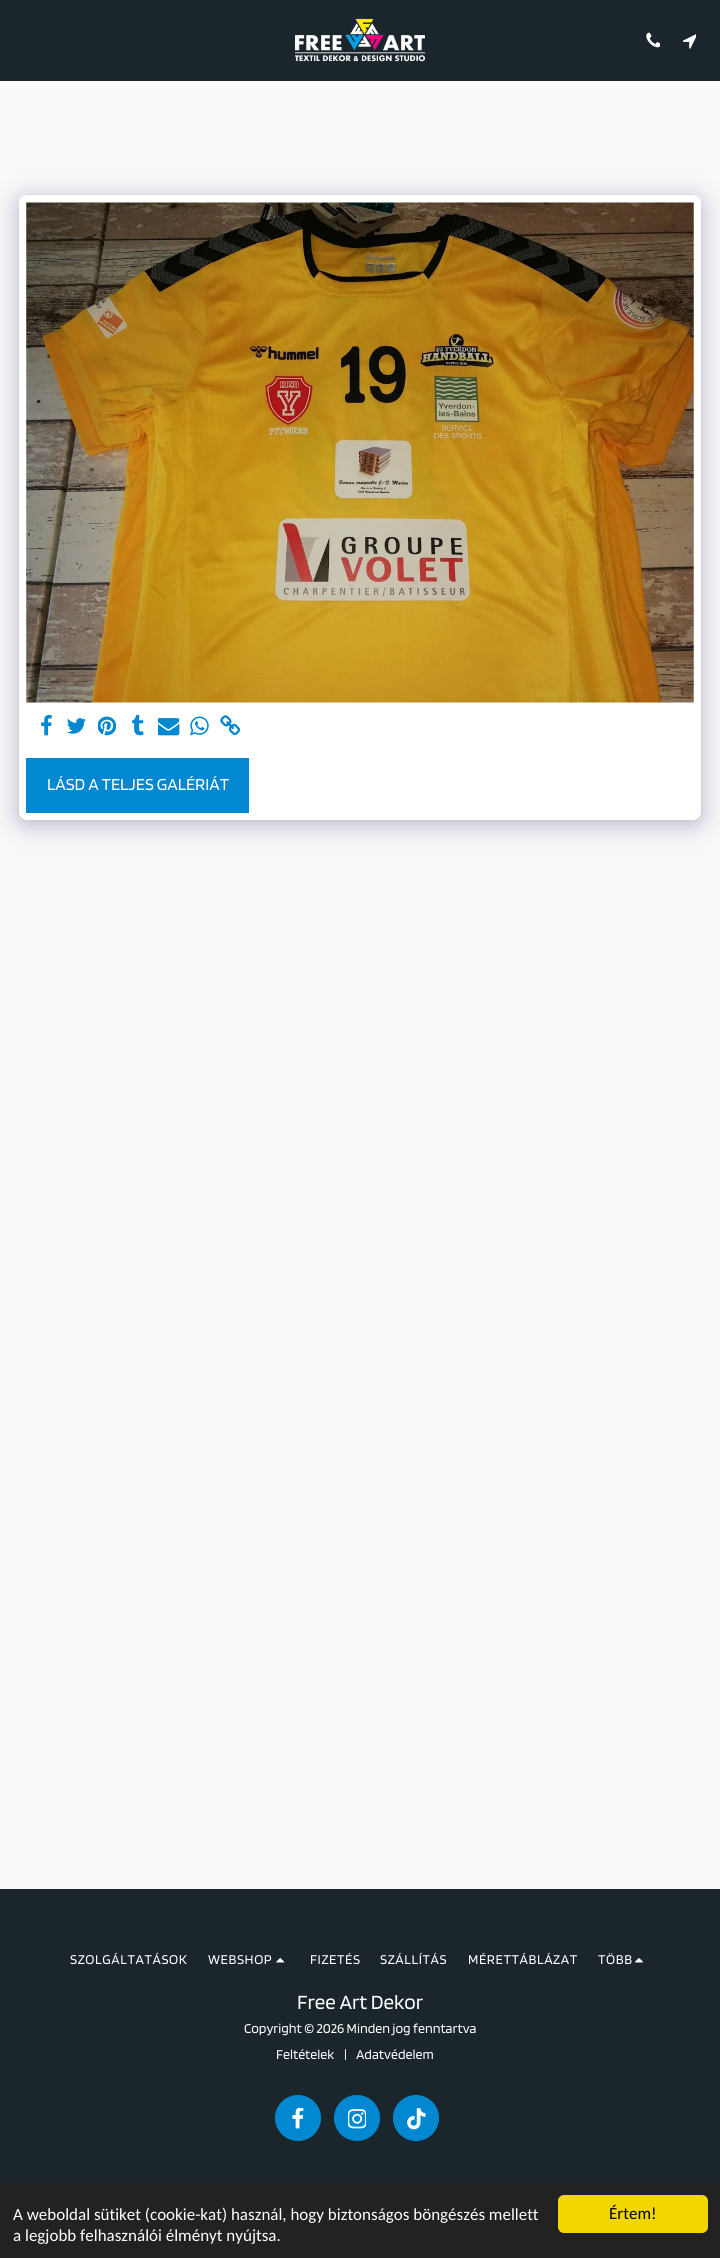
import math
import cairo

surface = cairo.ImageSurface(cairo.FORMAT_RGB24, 720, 2258)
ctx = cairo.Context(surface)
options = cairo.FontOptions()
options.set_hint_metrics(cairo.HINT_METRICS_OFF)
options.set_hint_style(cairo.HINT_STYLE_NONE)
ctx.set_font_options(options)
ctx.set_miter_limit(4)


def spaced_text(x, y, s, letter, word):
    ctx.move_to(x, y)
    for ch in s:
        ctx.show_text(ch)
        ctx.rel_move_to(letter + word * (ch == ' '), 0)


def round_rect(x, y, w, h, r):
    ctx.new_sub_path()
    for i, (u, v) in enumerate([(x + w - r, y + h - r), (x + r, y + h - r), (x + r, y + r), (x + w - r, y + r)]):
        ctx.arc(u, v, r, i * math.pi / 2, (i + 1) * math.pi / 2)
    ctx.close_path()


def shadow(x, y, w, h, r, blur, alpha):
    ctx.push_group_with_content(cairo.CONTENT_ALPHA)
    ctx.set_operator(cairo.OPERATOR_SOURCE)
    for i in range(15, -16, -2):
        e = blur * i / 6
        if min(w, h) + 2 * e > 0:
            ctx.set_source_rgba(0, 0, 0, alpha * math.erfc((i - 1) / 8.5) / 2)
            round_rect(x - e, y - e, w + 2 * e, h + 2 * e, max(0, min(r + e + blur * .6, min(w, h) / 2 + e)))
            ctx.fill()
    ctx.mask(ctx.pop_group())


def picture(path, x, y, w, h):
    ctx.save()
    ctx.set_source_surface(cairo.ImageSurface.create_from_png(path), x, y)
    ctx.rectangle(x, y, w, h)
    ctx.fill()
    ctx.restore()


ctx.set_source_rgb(0.106, 0.149, 0.173)
ctx.paint()
picture("img1.png", 295, 18, 130, 44)
picture("img2.png", 646, 32, 14, 16)
picture("img3.png", 683, 34, 13, 15)
ctx.set_source_rgb(0.976, 0.976, 0.976)
ctx.rectangle(0, 81, 720, 1808)
ctx.fill()
ctx.set_source_rgb(0.302, 0.247, 0.478)
shadow(19, 199, 682, 625, 8, 12.5, 0.4)
ctx.set_source_rgb(1, 1, 1)
round_rect(19, 195, 682, 625, 8)
ctx.fill()
picture("img4.png", 26, 202, 668, 501)
picture("img5.png", 41, 715, 11, 21)
picture("img6.png", 67, 718, 19, 16)
picture("img7.png", 98, 716, 18, 20)
picture("img8.png", 132, 715, 12, 21)
picture("img9.png", 158, 718, 22, 18)
picture("img10.png", 190, 716, 19, 20)
picture("img11.png", 220, 715, 20, 21)
ctx.set_source_rgb(0.008, 0.533, 0.82)
ctx.rectangle(26, 758, 223, 55)
ctx.fill()
ctx.select_font_face("Blinker")
ctx.set_font_size(17.5)
ctx.set_source_rgb(1, 1, 1)
ctx.move_to(47, 790)
ctx.show_text("LÁSD A TELJES GALÉRIÁT")
ctx.set_font_size(14)
spaced_text(70, 1964, "SZOLGÁLTATÁSOK", 0.6, 0)
spaced_text(208, 1964, "WEBSHOP", 0.6, 0)
picture("img12.png", 276, 1958, 8, 5)
spaced_text(310, 1964, "FIZETÉS", 0.6, 0)
spaced_text(380, 1964, "SZÁLLÍTÁS", 0.6, 0)
spaced_text(468, 1964, "MÉRETTÁBLÁZAT", 0.6, 0)
spaced_text(598, 1964, "TÖBB", 0.6, 0)
picture("img13.png", 635, 1958, 8, 5)
ctx.set_font_size(21)
ctx.move_to(297, 2009)
ctx.show_text("Free Art Dekor")
ctx.set_font_size(14)
ctx.move_to(244, 2033)
ctx.show_text("Copyright © 2026 Minden jog fenntartva")
ctx.move_to(276, 2059)
ctx.show_text("Feltételek")
ctx.move_to(344, 2059)
ctx.show_text("|")
ctx.move_to(356, 2059)
ctx.show_text("Adatvédelem")
ctx.set_source_rgb(0.008, 0.533, 0.82)
ctx.new_path()
ctx.arc(298, 2118, 22.5, 0, 2 * math.pi)
ctx.fill_preserve()
ctx.set_line_width(1)
ctx.stroke()
picture("img14.png", 292, 2108, 12, 21)
ctx.arc(357, 2118, 22.5, 0, 2 * math.pi)
ctx.fill_preserve()
ctx.stroke()
picture("img15.png", 348, 2109, 18, 20)
ctx.arc(416, 2118, 22.5, 0, 2 * math.pi)
ctx.fill_preserve()
ctx.stroke()
picture("img16.png", 407, 2108, 19, 22)
ctx.set_source_rgb(0.133, 0.133, 0.133)
ctx.rectangle(0, 2183, 720, 75)
ctx.fill()
ctx.select_font_face("Carlito")
ctx.set_font_size(17)
ctx.set_source_rgb(1, 1, 1)
ctx.move_to(13, 2220)
ctx.show_text("A weboldal sütiket (cookie-kat) használ, hogy biztonságos böngészés mellett")
ctx.move_to(13, 2241)
ctx.show_text("a legjobb felhasználói élményt nyújtsa.")
ctx.set_source_rgb(0.945, 0.839, 0)
round_rect(558, 2195, 150, 38, 6)
ctx.fill()
ctx.set_source_rgb(0, 0, 0)
ctx.move_to(609, 2219)
ctx.show_text("Értem!")
surface.write_to_png("page.png")
